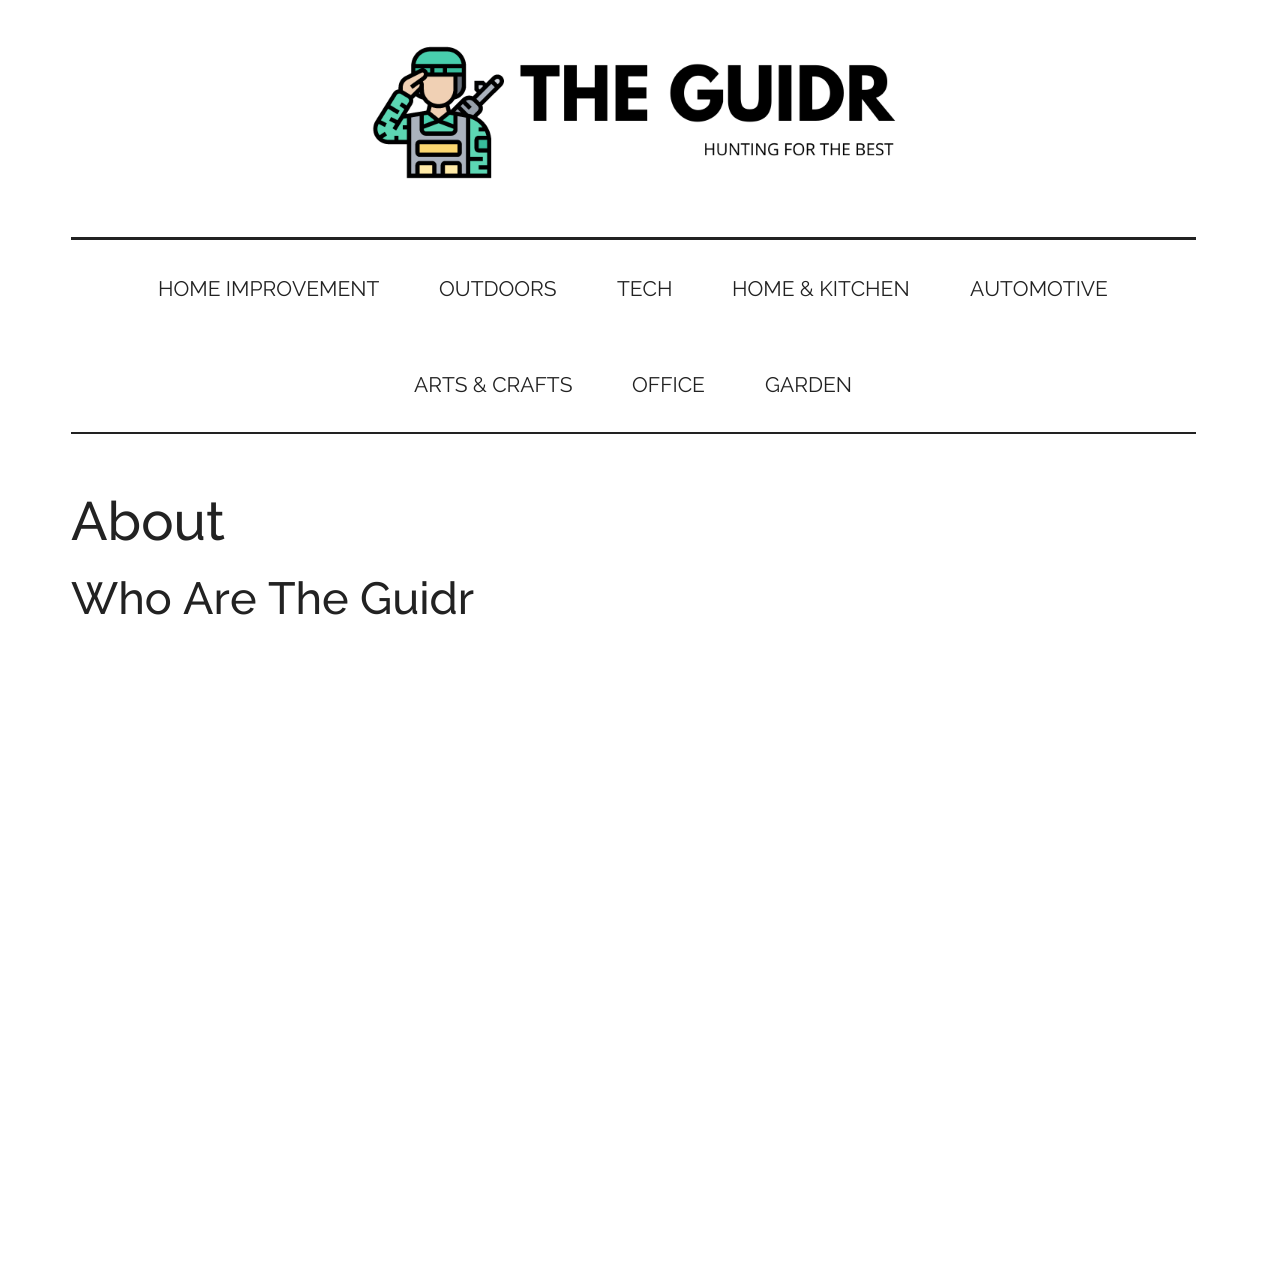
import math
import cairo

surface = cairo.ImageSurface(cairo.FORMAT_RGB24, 1266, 1270)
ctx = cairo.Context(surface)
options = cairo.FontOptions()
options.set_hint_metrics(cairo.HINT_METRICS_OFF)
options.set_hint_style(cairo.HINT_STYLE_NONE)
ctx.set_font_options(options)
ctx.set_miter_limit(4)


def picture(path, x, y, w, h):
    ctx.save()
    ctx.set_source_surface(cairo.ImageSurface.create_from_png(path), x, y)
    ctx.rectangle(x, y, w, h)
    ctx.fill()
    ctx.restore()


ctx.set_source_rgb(1, 1, 1)
ctx.paint()
ctx.set_source_rgb(0.133, 0.133, 0.133)
ctx.rectangle(71, 237, 1125, 3)
ctx.fill()
picture("img1.png", 372, 46, 524, 133)
ctx.rectangle(71, 432, 1125, 2)
ctx.fill()
ctx.select_font_face("Raleway")
ctx.set_font_size(21)
ctx.move_to(158, 296)
ctx.show_text("HOME IMPROVEMENT")
ctx.move_to(439, 296)
ctx.show_text("OUTDOORS")
ctx.move_to(617, 296)
ctx.show_text("TECH")
ctx.move_to(732, 296)
ctx.show_text("HOME & KITCHEN")
ctx.move_to(970, 296)
ctx.show_text("AUTOMOTIVE")
ctx.move_to(414, 392)
ctx.show_text("ARTS & CRAFTS")
ctx.move_to(632, 392)
ctx.show_text("OFFICE")
ctx.move_to(765, 392)
ctx.show_text("GARDEN")
ctx.select_font_face("Raleway Medium")
ctx.set_font_size(54)
ctx.move_to(71, 540)
ctx.show_text("About")
ctx.set_font_size(45)
ctx.move_to(71, 614)
ctx.show_text("Who Are The Guidr")
surface.write_to_png("page.png")
